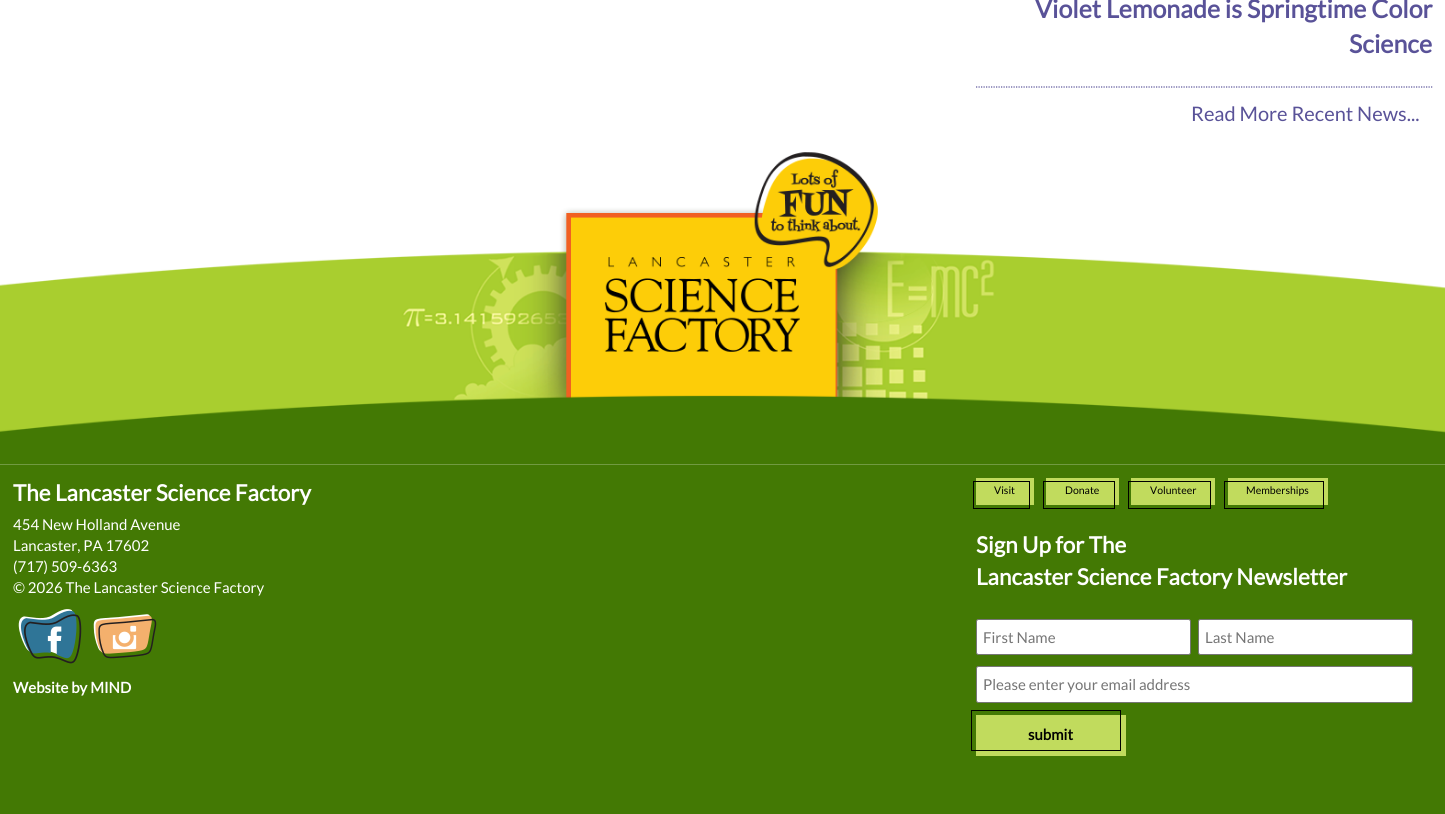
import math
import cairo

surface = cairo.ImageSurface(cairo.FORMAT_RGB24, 1445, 814)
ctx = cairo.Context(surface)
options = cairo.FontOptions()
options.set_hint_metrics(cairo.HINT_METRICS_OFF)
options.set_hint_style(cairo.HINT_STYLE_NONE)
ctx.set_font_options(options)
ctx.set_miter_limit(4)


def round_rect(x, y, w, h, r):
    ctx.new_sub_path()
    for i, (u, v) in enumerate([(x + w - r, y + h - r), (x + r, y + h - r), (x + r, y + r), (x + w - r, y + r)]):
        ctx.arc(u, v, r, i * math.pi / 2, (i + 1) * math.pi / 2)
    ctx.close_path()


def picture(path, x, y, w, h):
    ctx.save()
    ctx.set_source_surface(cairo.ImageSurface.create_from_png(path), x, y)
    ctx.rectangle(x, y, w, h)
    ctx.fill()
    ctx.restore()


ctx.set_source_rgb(1, 1, 1)
ctx.paint()
ctx.new_path()
ctx.move_to(976, 87)
ctx.line_to(1432.5, 87)
ctx.set_source_rgb(0.349, 0.322, 0.596)
ctx.set_line_width(1.2)
ctx.set_dash([1.25, 1.25])
ctx.stroke()
ctx.select_font_face("Lato", cairo.FONT_SLANT_NORMAL, cairo.FONT_WEIGHT_BOLD)
ctx.set_font_size(25)
ctx.move_to(1035, 18)
ctx.show_text("Violet Lemonade is Springtime Color")
ctx.move_to(1349, 53)
ctx.show_text("Science")
ctx.select_font_face("Lato")
ctx.set_font_size(20)
ctx.move_to(1191, 121)
ctx.show_text("Read More Recent News...")
picture("img1.png", 0, 152, 1445, 313)
ctx.set_source_rgb(0.263, 0.475, 0.016)
ctx.rectangle(0, 465, 1445, 349)
ctx.fill()
ctx.select_font_face("Lato", cairo.FONT_SLANT_NORMAL, cairo.FONT_WEIGHT_BOLD)
ctx.set_font_size(22.5)
ctx.set_source_rgb(1, 1, 1)
ctx.move_to(13, 501)
ctx.show_text("The Lancaster Science Factory")
ctx.select_font_face("Lato")
ctx.set_font_size(15)
ctx.move_to(13, 530)
ctx.show_text("454 New Holland Avenue")
ctx.move_to(13, 551)
ctx.show_text("Lancaster, PA 17602")
ctx.move_to(13, 572)
ctx.show_text("(717) 509-6363")
ctx.move_to(13, 593)
ctx.show_text("© 2026 The Lancaster Science Factory")
picture("img2.png", 18, 609, 64, 55)
picture("img3.png", 93, 614, 64, 45)
ctx.select_font_face("Lato", cairo.FONT_SLANT_NORMAL, cairo.FONT_WEIGHT_BOLD)
ctx.move_to(13, 693)
ctx.show_text("Website by MIND")
ctx.set_source_rgb(0.757, 0.859, 0.365)
ctx.rectangle(976, 478, 58, 27)
ctx.fill()
ctx.rectangle(973.5, 481.5, 56, 27)
ctx.set_source_rgb(0, 0, 0)
ctx.set_line_width(1)
ctx.set_dash([])
ctx.stroke()
ctx.select_font_face("Lato")
ctx.set_font_size(10.5)
ctx.move_to(994, 494)
ctx.show_text("Visit")
ctx.set_source_rgb(0.757, 0.859, 0.365)
ctx.rectangle(1046, 478, 73, 27)
ctx.fill()
ctx.rectangle(1043.5, 481.5, 71, 27)
ctx.set_source_rgb(0, 0, 0)
ctx.stroke()
ctx.move_to(1065, 494)
ctx.show_text("Donate")
ctx.set_source_rgb(0.757, 0.859, 0.365)
ctx.rectangle(1131, 478, 84, 27)
ctx.fill()
ctx.rectangle(1128.5, 481.5, 82, 27)
ctx.set_source_rgb(0, 0, 0)
ctx.stroke()
ctx.move_to(1150, 494)
ctx.show_text("Volunteer")
ctx.set_source_rgb(0.757, 0.859, 0.365)
ctx.rectangle(1228, 478, 100, 27)
ctx.fill()
ctx.rectangle(1224.5, 481.5, 99, 27)
ctx.set_source_rgb(0, 0, 0)
ctx.stroke()
ctx.move_to(1246, 494)
ctx.show_text("Memberships")
ctx.select_font_face("Lato", cairo.FONT_SLANT_NORMAL, cairo.FONT_WEIGHT_BOLD)
ctx.set_font_size(22.5)
ctx.set_source_rgb(1, 1, 1)
ctx.move_to(976, 553)
ctx.show_text("Sign Up for The")
ctx.move_to(976, 585)
ctx.show_text("Lancaster Science Factory Newsletter")
round_rect(976.5, 619.5, 214, 35, 2)
ctx.fill_preserve()
ctx.set_source_rgb(0.463, 0.463, 0.463)
ctx.stroke()
ctx.select_font_face("Lato")
ctx.set_font_size(15)
ctx.set_source_rgb(0.459, 0.459, 0.459)
ctx.move_to(983, 643)
ctx.show_text("First Name")
ctx.set_source_rgb(1, 1, 1)
round_rect(1198.5, 619.5, 214, 35, 2)
ctx.fill_preserve()
ctx.set_source_rgb(0.463, 0.463, 0.463)
ctx.stroke()
ctx.set_source_rgb(0.459, 0.459, 0.459)
ctx.move_to(1205, 643)
ctx.show_text("Last Name")
ctx.set_source_rgb(1, 1, 1)
round_rect(976.5, 666.5, 436, 36, 2)
ctx.fill_preserve()
ctx.set_source_rgb(0.463, 0.463, 0.463)
ctx.stroke()
ctx.set_source_rgb(0.459, 0.459, 0.459)
ctx.move_to(983, 690)
ctx.show_text("Please enter your email address")
ctx.set_source_rgb(0.757, 0.859, 0.365)
ctx.rectangle(976, 715, 150, 41)
ctx.fill()
ctx.rectangle(971.5, 710.5, 149, 40)
ctx.set_source_rgb(0, 0, 0)
ctx.stroke()
ctx.select_font_face("Lato", cairo.FONT_SLANT_NORMAL, cairo.FONT_WEIGHT_BOLD)
ctx.move_to(1028, 740)
ctx.show_text("submit")
surface.write_to_png("page.png")
